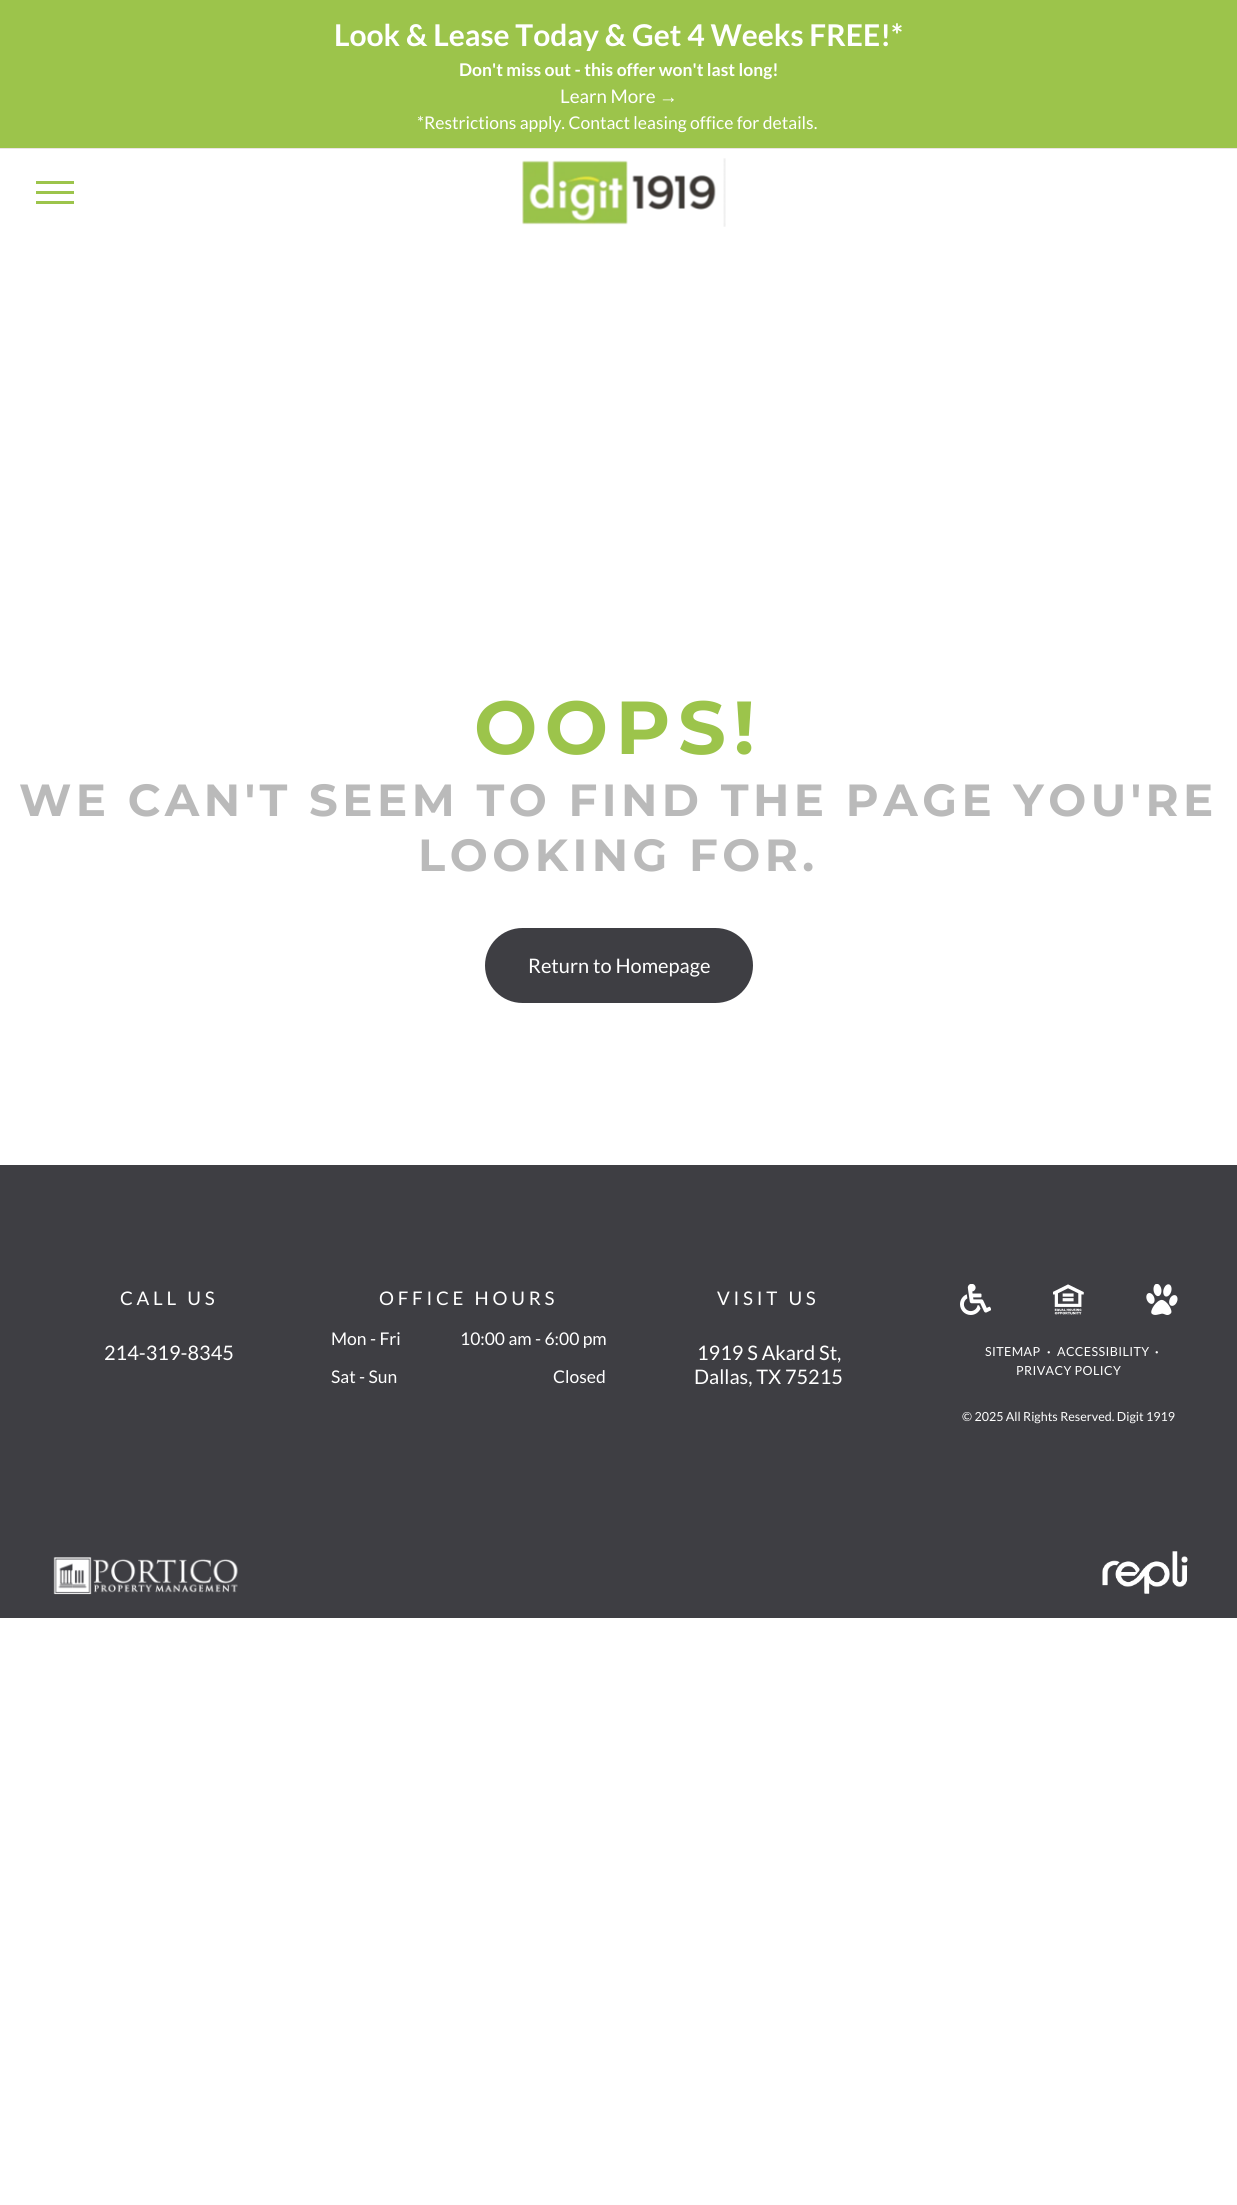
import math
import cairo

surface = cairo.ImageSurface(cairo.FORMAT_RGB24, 1237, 2205)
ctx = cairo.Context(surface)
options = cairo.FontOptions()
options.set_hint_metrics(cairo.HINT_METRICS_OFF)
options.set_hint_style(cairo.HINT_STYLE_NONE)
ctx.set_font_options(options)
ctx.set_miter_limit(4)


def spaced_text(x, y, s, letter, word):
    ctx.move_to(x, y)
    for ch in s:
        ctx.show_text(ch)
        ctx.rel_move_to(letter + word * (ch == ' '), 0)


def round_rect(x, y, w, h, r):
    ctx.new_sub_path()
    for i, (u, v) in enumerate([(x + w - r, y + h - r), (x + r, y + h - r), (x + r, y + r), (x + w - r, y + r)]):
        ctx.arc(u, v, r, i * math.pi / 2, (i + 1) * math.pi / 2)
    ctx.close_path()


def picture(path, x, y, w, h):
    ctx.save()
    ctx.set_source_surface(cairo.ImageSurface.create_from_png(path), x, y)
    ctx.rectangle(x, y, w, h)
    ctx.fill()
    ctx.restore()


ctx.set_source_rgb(1, 1, 1)
ctx.paint()
ctx.set_source_rgb(0.243, 0.243, 0.263)
ctx.rectangle(0, 1165, 1237, 453)
ctx.fill()
ctx.set_source_rgb(0.612, 0.769, 0.294)
ctx.rectangle(0, 0, 1237, 148)
ctx.fill()
ctx.set_source_rgb(0.918, 0.894, 0.894)
ctx.rectangle(0, 148, 1237, 1)
ctx.fill()
ctx.select_font_face("Lato", cairo.FONT_SLANT_NORMAL, cairo.FONT_WEIGHT_BOLD)
ctx.set_font_size(30)
ctx.set_source_rgb(1, 1, 1)
ctx.move_to(334, 46)
ctx.show_text("Look & Lease Today & Get 4 Weeks FREE!*")
ctx.set_font_size(17.5)
ctx.move_to(459, 76)
ctx.show_text("Don't miss out - this offer won't last long!")
ctx.select_font_face("Lato")
ctx.set_font_size(18.75)
ctx.move_to(560, 103)
ctx.show_text("Learn More")
ctx.select_font_face("Liberation Serif")
ctx.move_to(659, 103)
ctx.show_text("→")
ctx.select_font_face("Lato")
ctx.set_font_size(17.5)
ctx.move_to(417, 129)
ctx.show_text("*Restrictions apply. Contact leasing office for details.")
ctx.set_font_size(18.75)
spaced_text(120, 1305, "CALL US", 3.75, 0)
ctx.set_font_size(20)
ctx.move_to(104, 1360)
ctx.show_text("214-319-8345")
ctx.set_font_size(18.75)
spaced_text(379, 1305, "OFFICE HOURS", 3.75, 0)
ctx.set_font_size(17.5)
ctx.move_to(331, 1345)
ctx.show_text("Mon - Fri")
ctx.move_to(460, 1345)
ctx.show_text("10:00 am - 6:00 pm")
ctx.move_to(331, 1383)
ctx.show_text("Sat - Sun")
ctx.move_to(553, 1383)
ctx.show_text("Closed")
ctx.set_font_size(18.75)
spaced_text(717, 1305, "VISIT US", 3.75, 0)
ctx.set_font_size(20)
ctx.move_to(697, 1360)
ctx.show_text("1919 S Akard St,")
ctx.move_to(694, 1384)
ctx.show_text("Dallas, TX 75215")
picture("img1.png", 960, 1284, 31, 31)
picture("img2.png", 1053, 1284, 31, 31)
picture("img3.png", 1146, 1284, 32, 31)
ctx.set_font_size(12.5)
spaced_text(985, 1356, "SITEMAP", 0.4, 0)
ctx.select_font_face("Lato", cairo.FONT_SLANT_NORMAL, cairo.FONT_WEIGHT_BOLD)
ctx.move_to(1047, 1356)
ctx.show_text("·")
ctx.select_font_face("Lato")
spaced_text(1057, 1356, "ACCESSIBILITY", 0.4, 0)
ctx.select_font_face("Lato", cairo.FONT_SLANT_NORMAL, cairo.FONT_WEIGHT_BOLD)
ctx.move_to(1155, 1356)
ctx.show_text("·")
ctx.select_font_face("Lato")
spaced_text(1016, 1375, "PRIVACY POLICY", 0.4, 0)
ctx.move_to(962, 1421)
ctx.show_text("© 2025 All Rights Reserved. Digit 1919")
picture("img4.png", 53, 1557, 185, 38)
picture("img5.png", 1102, 1551, 86, 43)
ctx.select_font_face("Montserrat", cairo.FONT_SLANT_NORMAL, cairo.FONT_WEIGHT_BOLD)
ctx.set_font_size(75)
ctx.set_source_rgb(0.612, 0.769, 0.294)
spaced_text(474, 754, "OOPS!", 7.5, 0)
ctx.set_font_size(45)
ctx.set_source_rgb(0.729, 0.729, 0.729)
spaced_text(19, 816, "WE CAN'T SEEM TO FIND THE PAGE YOU'RE", 4.5, 0)
spaced_text(418, 871, "LOOKING FOR.", 4.5, 0)
ctx.set_source_rgb(0.243, 0.243, 0.263)
round_rect(485, 928, 268, 75, 37.5)
ctx.fill()
ctx.select_font_face("Lato")
ctx.set_font_size(20)
ctx.set_source_rgb(1, 1, 1)
ctx.move_to(528, 973)
ctx.show_text("Return to Homepage")
ctx.set_source_rgb(0.612, 0.769, 0.294)
ctx.rectangle(36, 181, 38, 3)
ctx.fill()
ctx.rectangle(36, 191, 38, 3)
ctx.fill()
ctx.rectangle(36, 201, 38, 3)
ctx.fill()
picture("img6.png", 522, 158, 204, 69)
surface.write_to_png("page.png")
